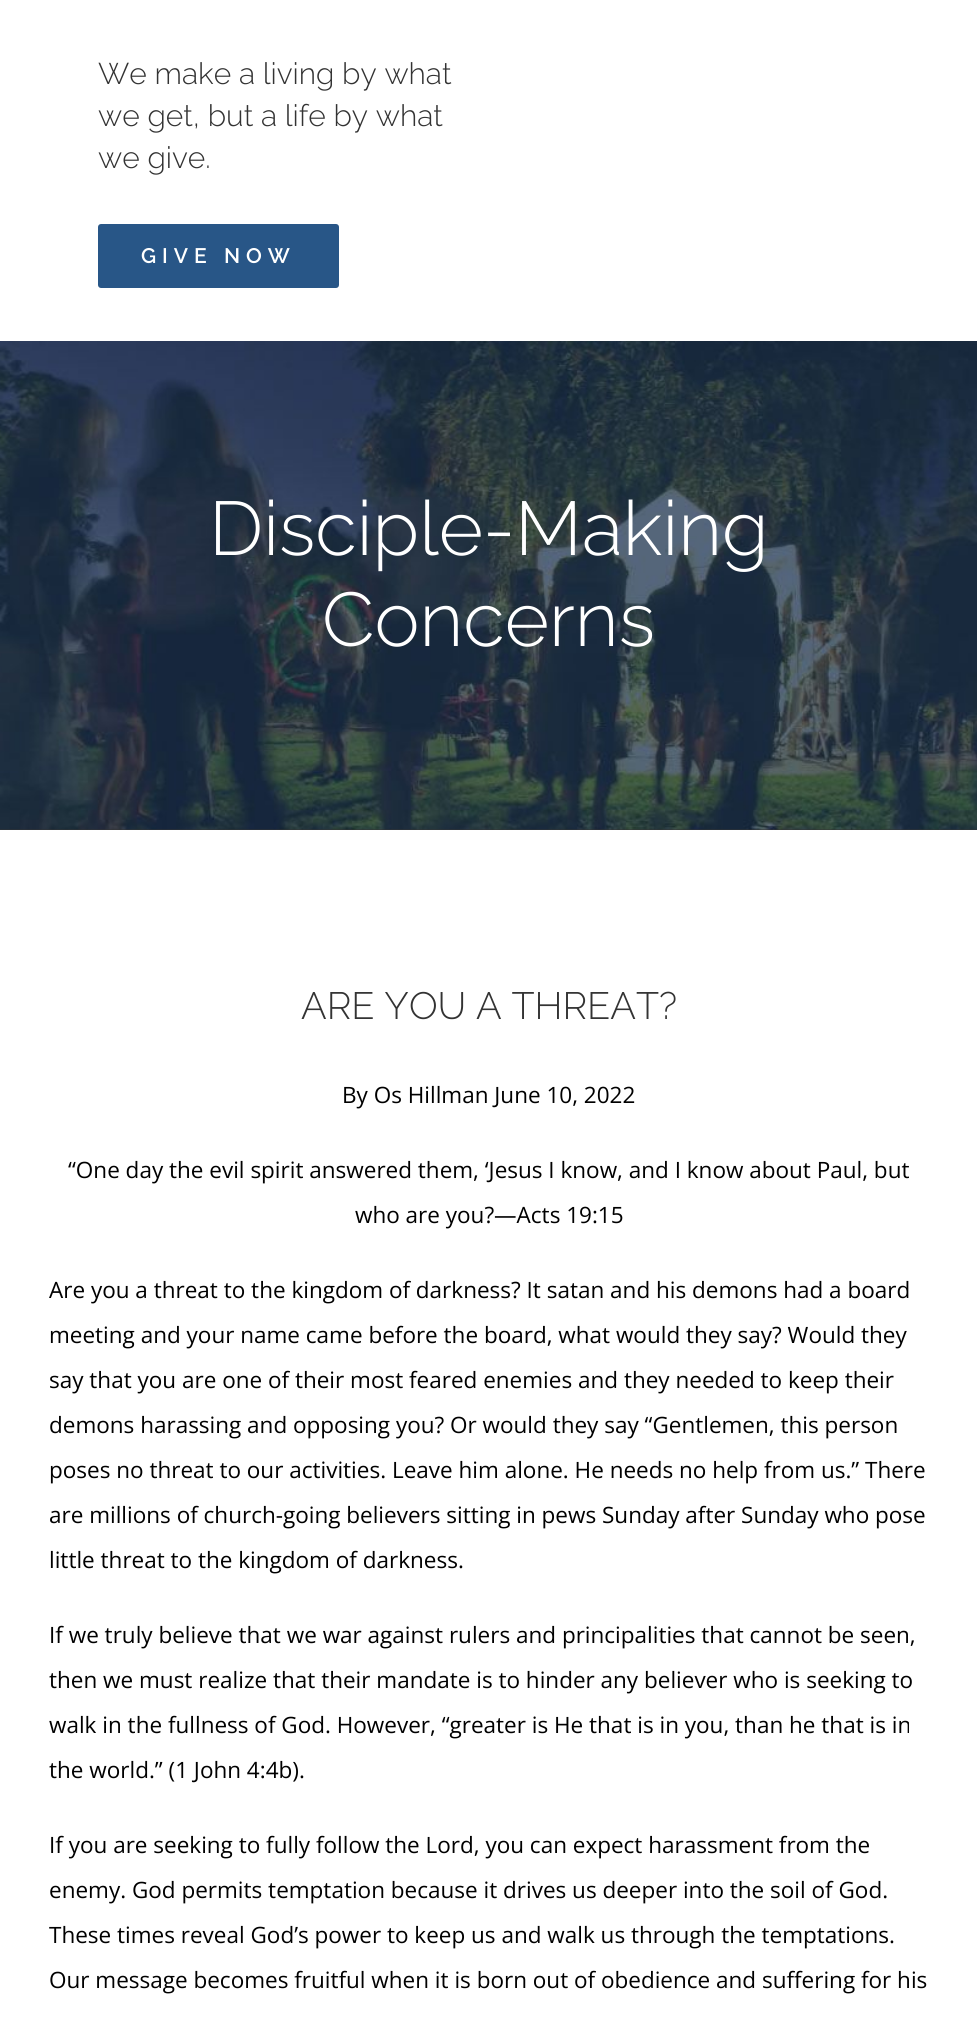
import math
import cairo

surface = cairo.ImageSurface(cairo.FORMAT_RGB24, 977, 2028)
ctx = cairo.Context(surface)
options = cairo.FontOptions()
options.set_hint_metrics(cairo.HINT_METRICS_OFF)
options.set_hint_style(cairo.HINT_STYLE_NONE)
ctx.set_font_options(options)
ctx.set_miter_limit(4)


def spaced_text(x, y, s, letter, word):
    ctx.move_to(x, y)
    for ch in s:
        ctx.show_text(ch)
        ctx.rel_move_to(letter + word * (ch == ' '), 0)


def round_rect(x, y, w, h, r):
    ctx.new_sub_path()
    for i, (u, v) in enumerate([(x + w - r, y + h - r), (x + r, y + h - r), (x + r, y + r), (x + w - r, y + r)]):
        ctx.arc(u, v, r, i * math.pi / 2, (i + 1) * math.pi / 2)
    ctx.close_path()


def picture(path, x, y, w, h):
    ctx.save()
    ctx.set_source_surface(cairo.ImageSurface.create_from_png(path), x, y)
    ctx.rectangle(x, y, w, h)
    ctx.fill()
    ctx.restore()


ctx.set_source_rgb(0.2, 0.2, 0.2)
ctx.paint()
ctx.set_source_rgb(1, 1, 1)
ctx.rectangle(0, 0, 977, 341)
ctx.fill()
ctx.select_font_face("Raleway Light")
ctx.set_font_size(30)
ctx.set_source_rgb(0.2, 0.2, 0.2)
ctx.move_to(98, 84)
ctx.show_text("We make a living by what")
ctx.move_to(98, 126)
ctx.show_text("we get, but a life by what")
ctx.move_to(98, 168)
ctx.show_text("we give.")
ctx.set_source_rgb(0.157, 0.337, 0.529)
round_rect(98, 224, 241, 64, 3)
ctx.fill()
ctx.select_font_face("Raleway SemiBold")
ctx.set_font_size(21)
ctx.set_source_rgb(1, 1, 1)
spaced_text(141, 263, "GIVE NOW", 6, 0)
picture("img1.png", 0, 341, 977, 489)
ctx.select_font_face("Raleway Light")
ctx.set_font_size(76)
ctx.move_to(209, 555)
ctx.show_text("Disciple-Making")
ctx.move_to(322, 646)
ctx.show_text("Concerns")
ctx.rectangle(0, 830, 977, 1198)
ctx.fill()
ctx.set_font_size(38)
ctx.set_source_rgb(0.2, 0.2, 0.2)
ctx.move_to(301, 1019)
ctx.show_text("ARE YOU A THREAT?")
ctx.select_font_face("Open Sans")
ctx.set_font_size(22.5)
ctx.set_source_rgb(0, 0, 0)
ctx.move_to(342, 1103)
ctx.show_text("By Os Hillman June 10, 2022")
ctx.move_to(68, 1178)
ctx.show_text("“One day the evil spirit answered them, ‘Jesus I know, and I know about Paul, but")
ctx.move_to(355, 1223)
ctx.show_text("who are you?—Acts 19:15")
ctx.move_to(49, 1298)
ctx.show_text("Are you a threat to the kingdom of darkness? It satan and his demons had a board")
ctx.move_to(49, 1343)
ctx.show_text("meeting and your name came before the board, what would they say? Would they")
ctx.move_to(49, 1388)
ctx.show_text("say that you are one of their most feared enemies and they needed to keep their")
ctx.move_to(49, 1433)
ctx.show_text("demons harassing and opposing you? Or would they say “Gentlemen, this person")
ctx.move_to(49, 1478)
ctx.show_text("poses no threat to our activities. Leave him alone. He needs no help from us.” There")
ctx.move_to(49, 1523)
ctx.show_text("are millions of church-going believers sitting in pews Sunday after Sunday who pose")
ctx.move_to(49, 1568)
ctx.show_text("little threat to the kingdom of darkness.")
ctx.move_to(49, 1643)
ctx.show_text("If we truly believe that we war against rulers and principalities that cannot be seen,")
ctx.move_to(49, 1688)
ctx.show_text("then we must realize that their mandate is to hinder any believer who is seeking to")
ctx.move_to(49, 1733)
ctx.show_text("walk in the fullness of God. However, “greater is He that is in you, than he that is in")
ctx.move_to(49, 1778)
ctx.show_text("the world.” (1 John 4:4b).")
ctx.move_to(49, 1853)
ctx.show_text("If you are seeking to fully follow the Lord, you can expect harassment from the")
ctx.move_to(49, 1898)
ctx.show_text("enemy. God permits temptation because it drives us deeper into the soil of God.")
ctx.move_to(49, 1943)
ctx.show_text("These times reveal God’s power to keep us and walk us through the temptations.")
ctx.move_to(49, 1988)
ctx.show_text("Our message becomes fruitful when it is born out of obedience and suffering for his")
surface.write_to_png("page.png")
